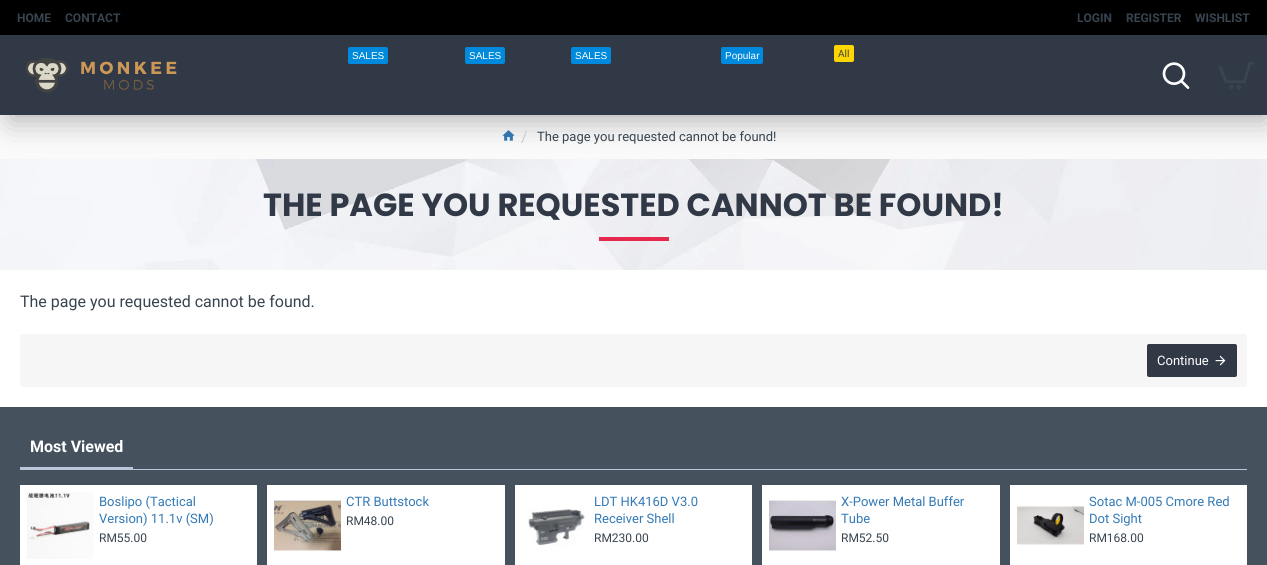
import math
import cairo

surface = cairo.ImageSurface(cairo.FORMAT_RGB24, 1267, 565)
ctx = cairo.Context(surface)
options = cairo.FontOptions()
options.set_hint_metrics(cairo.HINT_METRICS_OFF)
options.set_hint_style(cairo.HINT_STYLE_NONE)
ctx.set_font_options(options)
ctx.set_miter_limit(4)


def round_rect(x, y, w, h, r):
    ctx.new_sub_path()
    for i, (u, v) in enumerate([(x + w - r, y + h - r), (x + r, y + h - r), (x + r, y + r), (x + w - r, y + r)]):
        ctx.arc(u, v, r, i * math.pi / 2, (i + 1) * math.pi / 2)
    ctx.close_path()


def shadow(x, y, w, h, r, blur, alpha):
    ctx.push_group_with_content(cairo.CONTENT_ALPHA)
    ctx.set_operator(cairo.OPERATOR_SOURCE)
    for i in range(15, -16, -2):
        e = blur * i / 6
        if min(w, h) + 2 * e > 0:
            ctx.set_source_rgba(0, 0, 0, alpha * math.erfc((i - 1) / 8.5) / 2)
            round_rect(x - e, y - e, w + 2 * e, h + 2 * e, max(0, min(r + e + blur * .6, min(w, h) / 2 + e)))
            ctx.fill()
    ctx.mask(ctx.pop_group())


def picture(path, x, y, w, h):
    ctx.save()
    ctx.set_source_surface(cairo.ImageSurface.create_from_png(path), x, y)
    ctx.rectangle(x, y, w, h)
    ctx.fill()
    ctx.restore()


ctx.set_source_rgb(1, 1, 1)
ctx.paint()
ctx.set_source_rgb(0.98, 0.98, 0.98)
ctx.rectangle(0, 115, 1267, 44)
ctx.fill()
picture("img4.png", 502, 130, 13, 11)
picture("img5.png", 0, 159, 1267, 111)
ctx.set_source_rgb(0, 0, 0)
shadow(10, 15, 1257, 105, 0, 15, 0.3)
ctx.set_source_rgb(0.192, 0.22, 0.275)
ctx.rectangle(0, 35, 1267, 80)
ctx.fill()
ctx.set_source_rgb(0, 0, 0)
ctx.rectangle(0, 0, 1267, 35)
ctx.fill()
ctx.select_font_face("Roboto", cairo.FONT_SLANT_NORMAL, cairo.FONT_WEIGHT_BOLD)
ctx.set_font_size(12)
ctx.set_source_rgb(0.22, 0.267, 0.31)
ctx.move_to(17, 22)
ctx.show_text("HOME")
ctx.move_to(65, 22)
ctx.show_text("CONTACT")
ctx.move_to(1077, 22)
ctx.show_text("LOGIN")
ctx.move_to(1126, 22)
ctx.show_text("REGISTER")
ctx.move_to(1195, 22)
ctx.show_text("WISHLIST")
ctx.set_source_rgb(0, 0.541, 0.867)
round_rect(348, 47, 40, 17, 2)
ctx.fill()
ctx.select_font_face("Liberation Sans")
ctx.set_font_size(10)
ctx.set_source_rgb(1, 1, 1)
ctx.move_to(352, 59)
ctx.show_text("SALES")
ctx.set_source_rgb(0, 0.541, 0.867)
round_rect(465, 47, 40, 17, 2)
ctx.fill()
ctx.set_source_rgb(1, 1, 1)
ctx.move_to(469, 59)
ctx.show_text("SALES")
ctx.set_source_rgb(0, 0.541, 0.867)
round_rect(571, 47, 40, 17, 2)
ctx.fill()
ctx.set_source_rgb(1, 1, 1)
ctx.move_to(575, 59)
ctx.show_text("SALES")
ctx.set_source_rgb(0, 0.541, 0.867)
round_rect(721, 47, 42, 17, 2)
ctx.fill()
ctx.set_source_rgb(1, 1, 1)
ctx.move_to(725, 59)
ctx.show_text("Popular")
ctx.set_source_rgb(1, 0.839, 0)
round_rect(834, 45, 20, 17, 2)
ctx.fill()
ctx.select_font_face("Roboto")
ctx.set_source_rgb(0.22, 0.267, 0.31)
ctx.move_to(838, 57)
ctx.show_text("All")
picture("img1.png", 25, 58, 152, 35)
picture("img2.png", 1162, 62, 28, 27)
picture("img3.png", 1218, 62, 37, 28)
ctx.set_font_size(16)
ctx.set_source_rgb(0.8, 0.8, 0.8)
ctx.move_to(521, 142)
ctx.show_text("/")
ctx.set_font_size(13)
ctx.set_source_rgb(0.22, 0.267, 0.31)
ctx.move_to(537, 141)
ctx.show_text("The page you requested cannot be found!")
ctx.select_font_face("Poppins", cairo.FONT_SLANT_NORMAL, cairo.FONT_WEIGHT_BOLD)
ctx.set_font_size(32)
ctx.set_source_rgb(0.192, 0.22, 0.275)
ctx.move_to(263, 216)
ctx.show_text("THE PAGE YOU REQUESTED CANNOT BE FOUND!")
ctx.set_source_rgb(0.906, 0.157, 0.302)
ctx.rectangle(599, 237, 70, 4)
ctx.fill()
ctx.select_font_face("Roboto")
ctx.set_font_size(16)
ctx.set_source_rgb(0.22, 0.267, 0.31)
ctx.move_to(20, 307)
ctx.show_text("The page you requested cannot be found.")
ctx.set_source_rgb(0.961, 0.961, 0.961)
round_rect(20, 334, 1227, 53, 3)
ctx.fill()
ctx.set_source_rgb(0.192, 0.22, 0.275)
round_rect(1147, 344, 90, 33, 2)
ctx.fill()
ctx.set_font_size(13)
ctx.set_source_rgb(1, 1, 1)
ctx.move_to(1157, 365)
ctx.show_text("Continue")
picture("img6.png", 1215, 355, 11, 11)
ctx.set_source_rgb(0.271, 0.322, 0.369)
ctx.rectangle(0, 407, 1267, 158)
ctx.fill()
ctx.set_source_rgb(0.733, 0.776, 0.867)
ctx.rectangle(20, 469, 1227, 1)
ctx.fill()
ctx.rectangle(20, 467, 113, 2)
ctx.fill()
ctx.select_font_face("Roboto", cairo.FONT_SLANT_NORMAL, cairo.FONT_WEIGHT_BOLD)
ctx.set_font_size(16)
ctx.set_source_rgb(1, 1, 1)
ctx.move_to(30, 452)
ctx.show_text("Most Viewed")
ctx.rectangle(20, 485, 237, 80)
ctx.fill()
picture("img7.png", 27, 492, 67, 67)
ctx.select_font_face("Roboto")
ctx.set_font_size(13)
ctx.set_source_rgb(0.2, 0.478, 0.718)
ctx.move_to(99, 506)
ctx.show_text("Boslipo (Tactical")
ctx.move_to(99, 523)
ctx.show_text("Version) 11.1v (SM)")
ctx.set_font_size(12)
ctx.set_source_rgb(0.22, 0.267, 0.31)
ctx.move_to(99, 542)
ctx.show_text("RM55.00")
ctx.set_source_rgb(1, 1, 1)
ctx.rectangle(267, 485, 238, 80)
ctx.fill()
picture("img8.png", 274, 500, 67, 52)
ctx.set_font_size(13)
ctx.set_source_rgb(0.2, 0.478, 0.718)
ctx.move_to(346, 506)
ctx.show_text("CTR Buttstock")
ctx.set_font_size(12)
ctx.set_source_rgb(0.22, 0.267, 0.31)
ctx.move_to(346, 525)
ctx.show_text("RM48.00")
ctx.set_source_rgb(1, 1, 1)
ctx.rectangle(515, 485, 237, 80)
ctx.fill()
picture("img9.png", 528, 508, 57, 38)
ctx.set_font_size(13)
ctx.set_source_rgb(0.2, 0.478, 0.718)
ctx.move_to(594, 506)
ctx.show_text("LDT HK416D V3.0")
ctx.move_to(594, 523)
ctx.show_text("Receiver Shell")
ctx.set_font_size(12)
ctx.set_source_rgb(0.22, 0.267, 0.31)
ctx.move_to(594, 542)
ctx.show_text("RM230.00")
ctx.set_source_rgb(1, 1, 1)
ctx.rectangle(762, 485, 238, 80)
ctx.fill()
picture("img10.png", 769, 500, 67, 51)
ctx.set_font_size(13)
ctx.set_source_rgb(0.2, 0.478, 0.718)
ctx.move_to(841, 506)
ctx.show_text("X-Power Metal Buffer")
ctx.move_to(841, 523)
ctx.show_text("Tube")
ctx.set_font_size(12)
ctx.set_source_rgb(0.22, 0.267, 0.31)
ctx.move_to(841, 542)
ctx.show_text("RM52.50")
ctx.set_source_rgb(1, 1, 1)
ctx.rectangle(1010, 485, 237, 80)
ctx.fill()
picture("img11.png", 1017, 506, 67, 39)
ctx.set_font_size(13)
ctx.set_source_rgb(0.2, 0.478, 0.718)
ctx.move_to(1089, 506)
ctx.show_text("Sotac M-005 Cmore Red")
ctx.move_to(1089, 523)
ctx.show_text("Dot Sight")
ctx.set_font_size(12)
ctx.set_source_rgb(0.22, 0.267, 0.31)
ctx.move_to(1089, 542)
ctx.show_text("RM168.00")
surface.write_to_png("page.png")
